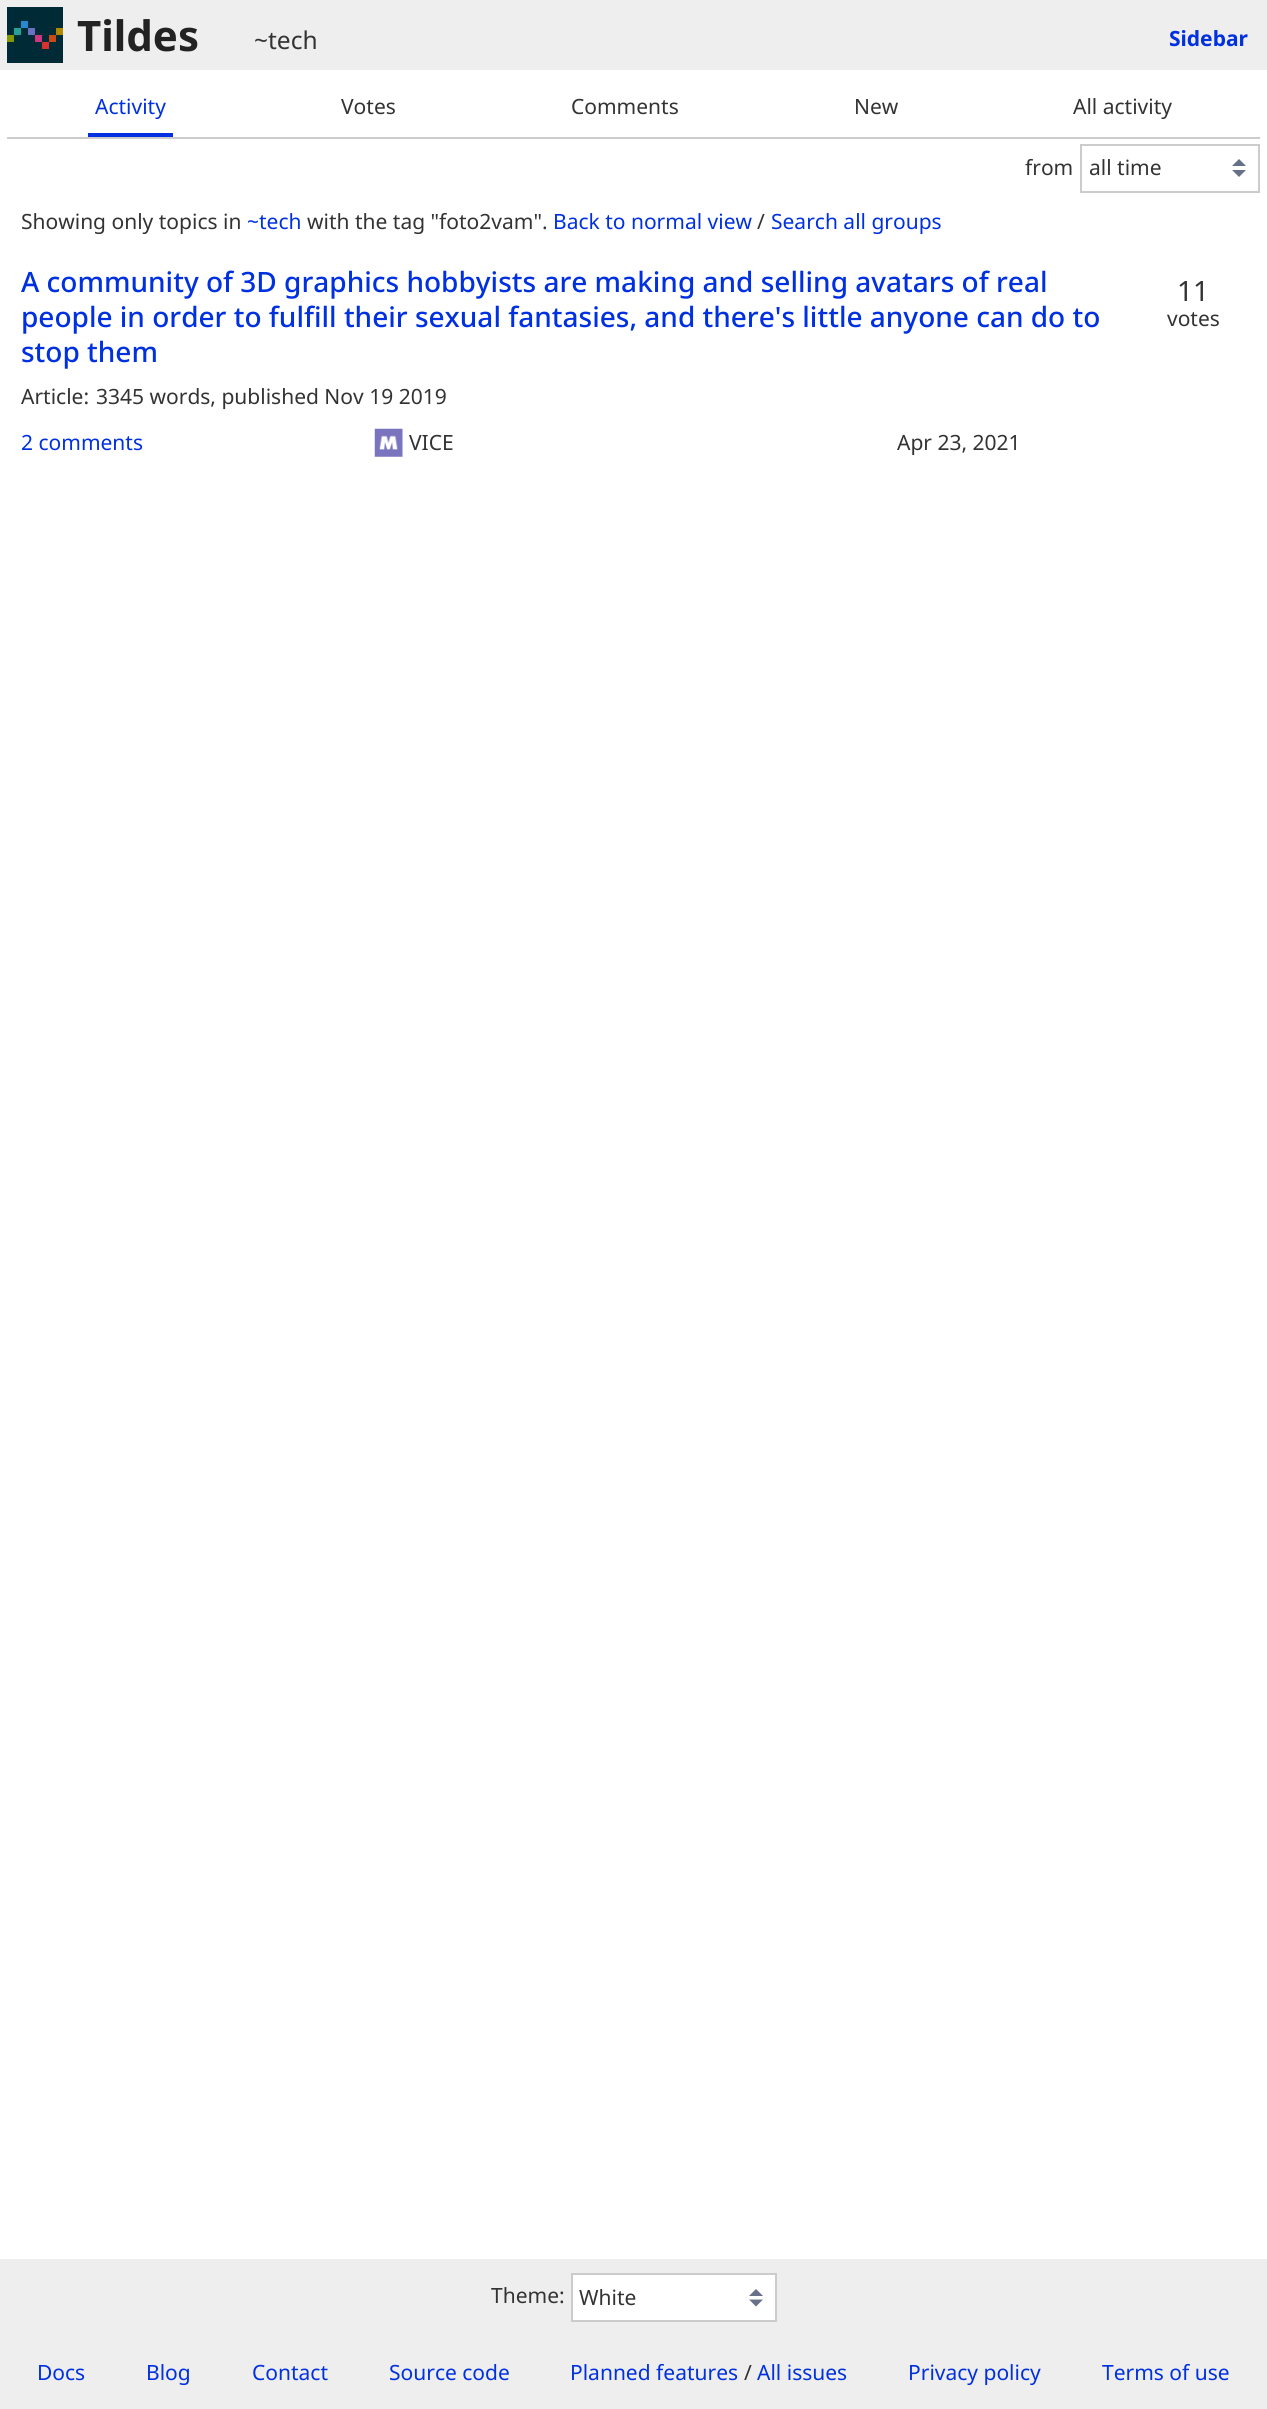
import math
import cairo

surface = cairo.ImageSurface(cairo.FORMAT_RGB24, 1267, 2409)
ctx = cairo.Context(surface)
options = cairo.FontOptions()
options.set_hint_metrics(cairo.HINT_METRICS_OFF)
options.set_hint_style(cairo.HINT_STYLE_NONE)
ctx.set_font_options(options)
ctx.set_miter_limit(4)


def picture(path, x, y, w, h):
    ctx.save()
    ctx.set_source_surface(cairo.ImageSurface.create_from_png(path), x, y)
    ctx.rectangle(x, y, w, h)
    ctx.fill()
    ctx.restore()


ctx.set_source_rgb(0.933, 0.933, 0.933)
ctx.paint()
picture("img1.png", 7, 7, 56, 56)
ctx.select_font_face("Noto Sans", cairo.FONT_SLANT_NORMAL, cairo.FONT_WEIGHT_BOLD)
ctx.set_font_size(42)
ctx.set_source_rgb(0.133, 0.133, 0.133)
ctx.move_to(77, 51)
ctx.show_text("Tildes")
ctx.select_font_face("Noto Sans")
ctx.set_font_size(24.5)
ctx.set_source_rgb(0.2, 0.2, 0.2)
ctx.move_to(254, 49)
ctx.show_text("~tech")
ctx.select_font_face("Noto Sans", cairo.FONT_SLANT_NORMAL, cairo.FONT_WEIGHT_BOLD)
ctx.set_font_size(21)
ctx.set_source_rgb(0, 0.188, 0.878)
ctx.move_to(1169, 46)
ctx.show_text("Sidebar")
ctx.set_source_rgb(1, 1, 1)
ctx.rectangle(0, 70, 1267, 2189)
ctx.fill()
ctx.set_source_rgb(0.8, 0.8, 0.8)
ctx.rectangle(7, 137, 1253, 2)
ctx.fill()
ctx.set_source_rgb(0, 0.188, 0.878)
ctx.rectangle(88, 133, 85, 4)
ctx.fill()
ctx.select_font_face("Noto Sans")
ctx.move_to(95, 114)
ctx.show_text("Activity")
ctx.set_source_rgb(0.2, 0.2, 0.2)
ctx.move_to(341, 114)
ctx.show_text("Votes")
ctx.move_to(571, 114)
ctx.show_text("Comments")
ctx.move_to(854, 114)
ctx.show_text("New")
ctx.move_to(1073, 114)
ctx.show_text("All activity")
ctx.move_to(1025, 175)
ctx.show_text("from")
ctx.set_source_rgb(0.4, 0.443, 0.537)
ctx.new_path()
ctx.move_to(1239, 159)
ctx.line_to(1232, 166)
ctx.line_to(1246, 166)
ctx.close_path()
ctx.move_to(1239, 177)
ctx.line_to(1232, 170)
ctx.line_to(1246, 170)
ctx.close_path()
ctx.fill()
ctx.rectangle(1081, 145, 178, 47)
ctx.set_source_rgb(0.8, 0.8, 0.8)
ctx.stroke()
ctx.set_source_rgb(0.2, 0.2, 0.2)
ctx.move_to(1089, 175)
ctx.show_text("all time")
ctx.move_to(21, 229)
ctx.show_text("Showing only topics in")
ctx.set_source_rgb(0, 0.188, 0.878)
ctx.move_to(247, 229)
ctx.show_text("~tech")
ctx.set_source_rgb(0.2, 0.2, 0.2)
ctx.move_to(307, 229)
ctx.show_text("with the tag \"foto2vam\".")
ctx.set_source_rgb(0, 0.188, 0.878)
ctx.move_to(553, 229)
ctx.show_text("Back to normal view")
ctx.set_source_rgb(0.2, 0.2, 0.2)
ctx.move_to(757, 229)
ctx.show_text("/")
ctx.set_source_rgb(0, 0.188, 0.878)
ctx.move_to(771, 229)
ctx.show_text("Search all groups")
ctx.select_font_face("Noto Sans Medium")
ctx.set_font_size(28)
ctx.move_to(21, 292)
ctx.show_text("A community of 3D graphics hobbyists are making and selling avatars of real")
ctx.move_to(21, 327)
ctx.show_text("people in order to fulfill their sexual fantasies, and there's little anyone can do to")
ctx.move_to(21, 362)
ctx.show_text("stop them")
ctx.select_font_face("Noto Sans")
ctx.set_source_rgb(0.2, 0.2, 0.2)
ctx.move_to(1177, 301)
ctx.show_text("11")
ctx.set_font_size(21)
ctx.move_to(1167, 326)
ctx.show_text("votes")
ctx.move_to(21, 404)
ctx.show_text("Article:")
ctx.move_to(96, 404)
ctx.show_text("3345 words, published Nov 19 2019")
ctx.set_source_rgb(0, 0.188, 0.878)
ctx.move_to(21, 450)
ctx.show_text("2 comments")
picture("img2.png", 374, 428, 29, 29)
ctx.set_source_rgb(0.2, 0.2, 0.2)
ctx.move_to(409, 450)
ctx.show_text("VICE")
ctx.move_to(897, 450)
ctx.show_text("Apr 23, 2021")
ctx.move_to(491, 2303)
ctx.show_text("Theme:")
ctx.set_source_rgb(1, 1, 1)
ctx.rectangle(573, 2275, 202, 45)
ctx.fill()
ctx.set_source_rgb(0.4, 0.443, 0.537)
ctx.new_path()
ctx.move_to(756, 2289)
ctx.line_to(749, 2296)
ctx.line_to(763, 2296)
ctx.close_path()
ctx.move_to(756, 2306.5)
ctx.line_to(749, 2299.5)
ctx.line_to(763, 2299.5)
ctx.close_path()
ctx.fill()
ctx.rectangle(572, 2274, 204, 47)
ctx.set_source_rgb(0.8, 0.8, 0.8)
ctx.stroke()
ctx.set_source_rgb(0.2, 0.2, 0.2)
ctx.move_to(579, 2305)
ctx.show_text("White")
ctx.set_source_rgb(0, 0.188, 0.878)
ctx.move_to(37, 2380)
ctx.show_text("Docs")
ctx.move_to(146, 2380)
ctx.show_text("Blog")
ctx.move_to(252, 2380)
ctx.show_text("Contact")
ctx.move_to(389, 2380)
ctx.show_text("Source code")
ctx.move_to(570, 2380)
ctx.show_text("Planned features")
ctx.set_source_rgb(0.2, 0.2, 0.2)
ctx.move_to(744, 2380)
ctx.show_text("/")
ctx.set_source_rgb(0, 0.188, 0.878)
ctx.move_to(757, 2380)
ctx.show_text("All issues")
ctx.move_to(908, 2380)
ctx.show_text("Privacy policy")
ctx.move_to(1102, 2380)
ctx.show_text("Terms of use")
surface.write_to_png("page.png")
